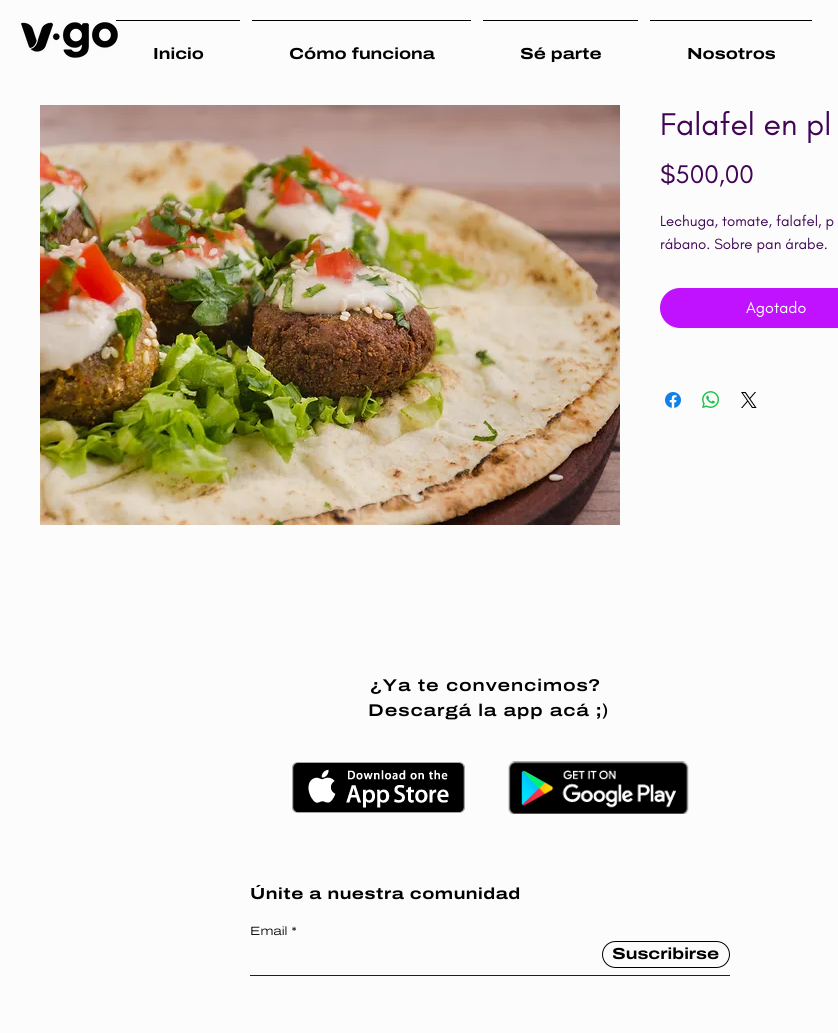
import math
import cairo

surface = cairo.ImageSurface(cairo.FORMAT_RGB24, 838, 1033)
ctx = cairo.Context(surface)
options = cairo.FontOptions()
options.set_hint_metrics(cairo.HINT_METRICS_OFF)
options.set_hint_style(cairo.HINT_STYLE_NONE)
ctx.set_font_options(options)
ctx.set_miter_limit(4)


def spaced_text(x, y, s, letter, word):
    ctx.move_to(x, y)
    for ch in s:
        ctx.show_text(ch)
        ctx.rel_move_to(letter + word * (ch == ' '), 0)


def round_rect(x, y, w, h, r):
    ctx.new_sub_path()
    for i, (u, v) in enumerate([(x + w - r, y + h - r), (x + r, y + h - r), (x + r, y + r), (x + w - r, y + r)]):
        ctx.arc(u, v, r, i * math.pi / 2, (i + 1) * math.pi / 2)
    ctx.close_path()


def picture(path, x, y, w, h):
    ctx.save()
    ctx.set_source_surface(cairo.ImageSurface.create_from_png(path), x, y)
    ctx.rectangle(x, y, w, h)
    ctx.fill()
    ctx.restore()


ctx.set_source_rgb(0.988, 0.988, 0.988)
ctx.paint()
picture("img1.png", 20, 22, 98, 36)
ctx.set_source_rgb(0, 0, 0)
ctx.rectangle(116, 20, 124, 1)
ctx.fill()
ctx.select_font_face("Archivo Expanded", cairo.FONT_SLANT_NORMAL, cairo.FONT_WEIGHT_BOLD)
ctx.set_font_size(16)
ctx.move_to(153, 59)
ctx.show_text("Inicio")
ctx.rectangle(252, 20, 219, 1)
ctx.fill()
ctx.move_to(289, 59)
ctx.show_text("Cómo funciona")
ctx.rectangle(483, 20, 155, 1)
ctx.fill()
ctx.move_to(520, 59)
ctx.show_text("Sé parte")
ctx.rectangle(650, 20, 162, 1)
ctx.fill()
ctx.move_to(687, 59)
ctx.show_text("Nosotros")
picture("img2.png", 40, 105, 580, 420)
ctx.select_font_face("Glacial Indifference")
ctx.set_font_size(32)
ctx.set_source_rgb(0.251, 0.024, 0.333)
ctx.move_to(660, 135)
ctx.show_text("Falafel en pl")
ctx.set_font_size(26)
ctx.move_to(660, 183)
ctx.show_text("$500,00")
ctx.set_font_size(15)
ctx.move_to(660, 226)
ctx.show_text("Lechuga, tomate, falafel, p")
ctx.move_to(660, 249)
ctx.show_text("rábano. Sobre pan árabe.")
ctx.set_source_rgb(0.757, 0.071, 1)
round_rect(660, 288, 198, 40, 20)
ctx.fill()
ctx.set_font_size(16)
ctx.set_source_rgb(1, 1, 1)
ctx.move_to(746, 313)
ctx.show_text("Agotado")
picture("img3.png", 665, 392, 16, 16)
picture("img4.png", 702, 391, 17, 17)
picture("img5.png", 741, 392, 16, 16)
ctx.select_font_face("Archivo Expanded SemiBold")
ctx.set_font_size(17)
ctx.set_source_rgb(0, 0, 0)
spaced_text(370, 691, "¿Ya te convencimos?", 0.85, 0)
spaced_text(368, 716, "Descargá la app acá ;)", 0.85, 0)
picture("img6.png", 292, 762, 174, 51)
picture("img7.png", 508, 761, 181, 53)
ctx.select_font_face("Archivo Expanded", cairo.FONT_SLANT_NORMAL, cairo.FONT_WEIGHT_BOLD)
ctx.set_font_size(16)
spaced_text(250, 899, "Únite a nuestra comunidad", 0.5, 0)
ctx.select_font_face("Archivo Expanded Light")
ctx.set_font_size(12)
ctx.move_to(250, 935)
ctx.show_text("Email *")
ctx.set_source_rgb(0.251, 0.024, 0.333)
ctx.rectangle(250, 975, 480, 1)
ctx.fill()
round_rect(602.5, 941.5, 127, 26, 13)
ctx.set_source_rgb(0, 0, 0)
ctx.set_line_width(1)
ctx.stroke()
ctx.select_font_face("Archivo Expanded", cairo.FONT_SLANT_NORMAL, cairo.FONT_WEIGHT_BOLD)
ctx.set_font_size(16)
ctx.move_to(612, 959)
ctx.show_text("Suscribirse")
surface.write_to_png("page.png")
